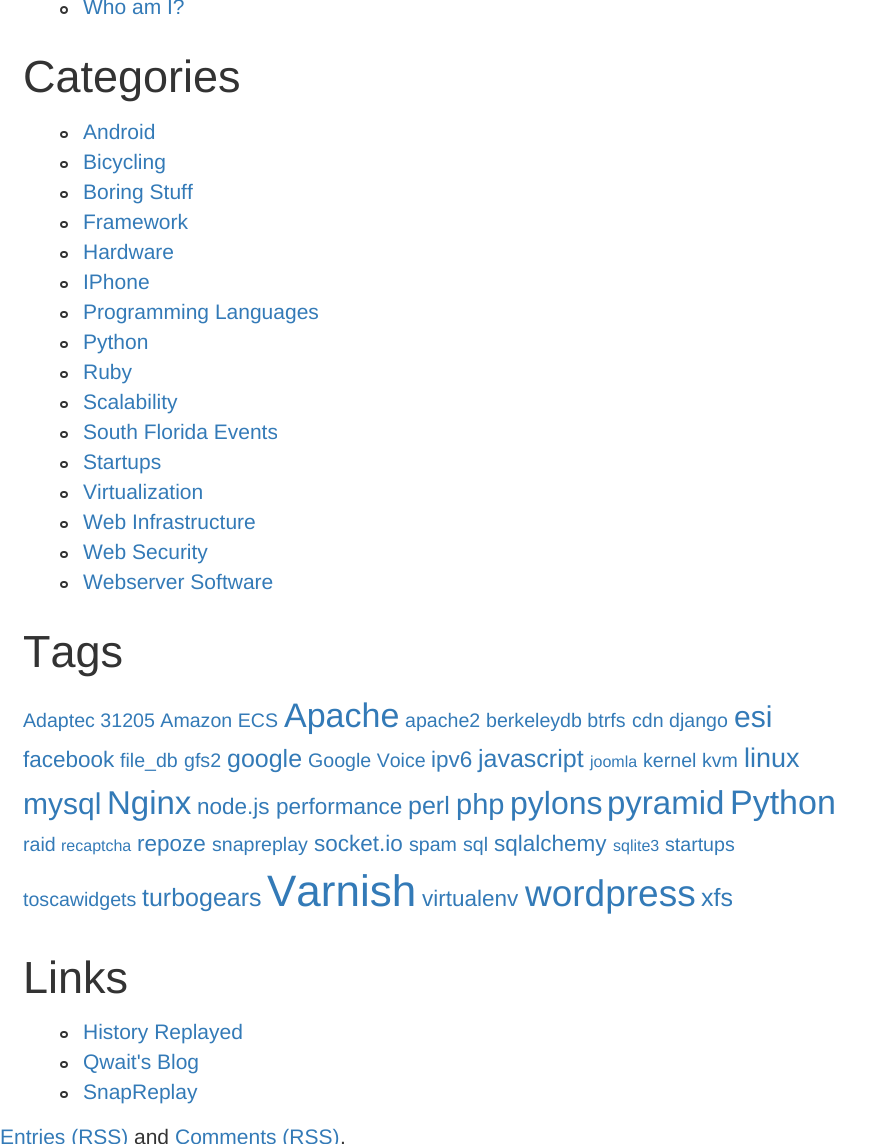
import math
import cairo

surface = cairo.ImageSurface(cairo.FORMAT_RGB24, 871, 1144)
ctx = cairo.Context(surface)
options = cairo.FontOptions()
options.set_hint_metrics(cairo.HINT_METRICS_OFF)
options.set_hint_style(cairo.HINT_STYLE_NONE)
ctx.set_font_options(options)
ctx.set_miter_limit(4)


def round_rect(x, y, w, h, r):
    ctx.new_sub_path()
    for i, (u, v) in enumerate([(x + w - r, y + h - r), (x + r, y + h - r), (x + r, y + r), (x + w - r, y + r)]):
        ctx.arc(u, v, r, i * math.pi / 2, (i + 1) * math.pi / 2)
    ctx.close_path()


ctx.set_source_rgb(1, 1, 1)
ctx.paint()
ctx.arc(64, 10, 3, 0, 2 * math.pi)
ctx.set_source_rgb(0.2, 0.2, 0.2)
ctx.stroke()
ctx.select_font_face("Liberation Sans")
ctx.set_font_size(21)
ctx.set_source_rgb(0.2, 0.478, 0.718)
ctx.move_to(83, 14)
ctx.show_text("Who am I?")
ctx.set_font_size(45)
ctx.set_source_rgb(0.2, 0.2, 0.2)
ctx.move_to(23, 92)
ctx.show_text("Categories")
round_rect(61, 132, 6, 5, 2.5)
ctx.stroke()
ctx.set_font_size(21)
ctx.set_source_rgb(0.2, 0.478, 0.718)
ctx.move_to(83, 139)
ctx.show_text("Android")
round_rect(61, 162, 6, 5, 2.5)
ctx.set_source_rgb(0.2, 0.2, 0.2)
ctx.stroke()
ctx.set_source_rgb(0.2, 0.478, 0.718)
ctx.move_to(83, 169)
ctx.show_text("Bicycling")
round_rect(61, 192, 6, 5, 2.5)
ctx.set_source_rgb(0.2, 0.2, 0.2)
ctx.stroke()
ctx.set_source_rgb(0.2, 0.478, 0.718)
ctx.move_to(83, 199)
ctx.show_text("Boring Stuff")
round_rect(61, 222, 6, 5, 2.5)
ctx.set_source_rgb(0.2, 0.2, 0.2)
ctx.stroke()
ctx.set_source_rgb(0.2, 0.478, 0.718)
ctx.move_to(83, 229)
ctx.show_text("Framework")
round_rect(61, 252, 6, 5, 2.5)
ctx.set_source_rgb(0.2, 0.2, 0.2)
ctx.stroke()
ctx.set_source_rgb(0.2, 0.478, 0.718)
ctx.move_to(83, 259)
ctx.show_text("Hardware")
round_rect(61, 282, 6, 5, 2.5)
ctx.set_source_rgb(0.2, 0.2, 0.2)
ctx.stroke()
ctx.set_source_rgb(0.2, 0.478, 0.718)
ctx.move_to(83, 289)
ctx.show_text("IPhone")
round_rect(61, 312, 6, 5, 2.5)
ctx.set_source_rgb(0.2, 0.2, 0.2)
ctx.stroke()
ctx.set_source_rgb(0.2, 0.478, 0.718)
ctx.move_to(83, 319)
ctx.show_text("Programming Languages")
round_rect(61, 342, 6, 5, 2.5)
ctx.set_source_rgb(0.2, 0.2, 0.2)
ctx.stroke()
ctx.set_source_rgb(0.2, 0.478, 0.718)
ctx.move_to(83, 349)
ctx.show_text("Python")
round_rect(61, 372, 6, 5, 2.5)
ctx.set_source_rgb(0.2, 0.2, 0.2)
ctx.stroke()
ctx.set_source_rgb(0.2, 0.478, 0.718)
ctx.move_to(83, 379)
ctx.show_text("Ruby")
round_rect(61, 402, 6, 5, 2.5)
ctx.set_source_rgb(0.2, 0.2, 0.2)
ctx.stroke()
ctx.set_source_rgb(0.2, 0.478, 0.718)
ctx.move_to(83, 409)
ctx.show_text("Scalability")
round_rect(61, 432, 6, 5, 2.5)
ctx.set_source_rgb(0.2, 0.2, 0.2)
ctx.stroke()
ctx.set_source_rgb(0.2, 0.478, 0.718)
ctx.move_to(83, 439)
ctx.show_text("South Florida Events")
round_rect(61, 462, 6, 5, 2.5)
ctx.set_source_rgb(0.2, 0.2, 0.2)
ctx.stroke()
ctx.set_source_rgb(0.2, 0.478, 0.718)
ctx.move_to(83, 469)
ctx.show_text("Startups")
round_rect(61, 492, 6, 5, 2.5)
ctx.set_source_rgb(0.2, 0.2, 0.2)
ctx.stroke()
ctx.set_source_rgb(0.2, 0.478, 0.718)
ctx.move_to(83, 499)
ctx.show_text("Virtualization")
round_rect(61, 522, 6, 5, 2.5)
ctx.set_source_rgb(0.2, 0.2, 0.2)
ctx.stroke()
ctx.set_source_rgb(0.2, 0.478, 0.718)
ctx.move_to(83, 529)
ctx.show_text("Web Infrastructure")
round_rect(61, 552, 6, 5, 2.5)
ctx.set_source_rgb(0.2, 0.2, 0.2)
ctx.stroke()
ctx.set_source_rgb(0.2, 0.478, 0.718)
ctx.move_to(83, 559)
ctx.show_text("Web Security")
round_rect(61, 582, 6, 5, 2.5)
ctx.set_source_rgb(0.2, 0.2, 0.2)
ctx.stroke()
ctx.set_source_rgb(0.2, 0.478, 0.718)
ctx.move_to(83, 589)
ctx.show_text("Webserver Software")
ctx.set_font_size(45)
ctx.set_source_rgb(0.2, 0.2, 0.2)
ctx.move_to(23, 667)
ctx.show_text("Tags")
ctx.set_font_size(19.6)
ctx.set_source_rgb(0.2, 0.478, 0.718)
ctx.move_to(23, 727)
ctx.show_text("Adaptec 31205 Amazon ECS")
ctx.set_font_size(34)
ctx.move_to(284, 727)
ctx.show_text("Apache")
ctx.set_font_size(19.6)
ctx.move_to(405, 727)
ctx.show_text("apache2")
ctx.move_to(486, 727)
ctx.show_text("berkeleydb btrfs")
ctx.move_to(632, 727)
ctx.show_text("cdn")
ctx.move_to(669, 727)
ctx.show_text("django")
ctx.set_font_size(30)
ctx.move_to(734, 727)
ctx.show_text("esi")
ctx.set_font_size(22.5)
ctx.move_to(23, 767)
ctx.show_text("facebook")
ctx.set_font_size(19.6)
ctx.move_to(120, 767)
ctx.show_text("file_db")
ctx.move_to(184, 767)
ctx.show_text("gfs2")
ctx.set_font_size(25)
ctx.move_to(227, 767)
ctx.show_text("google")
ctx.set_font_size(19.6)
ctx.move_to(308, 767)
ctx.show_text("Google Voice")
ctx.set_font_size(22.5)
ctx.move_to(431, 767)
ctx.show_text("ipv6")
ctx.set_font_size(25)
ctx.move_to(478, 767)
ctx.show_text("javascript")
ctx.set_font_size(16)
ctx.move_to(590, 767)
ctx.show_text("joomla")
ctx.set_font_size(19.6)
ctx.move_to(643, 767)
ctx.show_text("kernel")
ctx.move_to(702, 767)
ctx.show_text("kvm")
ctx.set_font_size(27)
ctx.move_to(744, 767)
ctx.show_text("linux")
ctx.set_font_size(30)
ctx.move_to(23, 814)
ctx.show_text("mysql")
ctx.set_font_size(33)
ctx.move_to(107, 814)
ctx.show_text("Nginx")
ctx.set_font_size(22.5)
ctx.move_to(197, 814)
ctx.show_text("node.js")
ctx.move_to(276, 814)
ctx.show_text("performance")
ctx.set_font_size(25)
ctx.move_to(408, 814)
ctx.show_text("perl")
ctx.set_font_size(29)
ctx.move_to(456, 814)
ctx.show_text("php")
ctx.set_font_size(32)
ctx.move_to(510, 814)
ctx.show_text("pylons")
ctx.set_font_size(33)
ctx.move_to(607, 814)
ctx.show_text("pyramid")
ctx.set_font_size(34)
ctx.move_to(730, 814)
ctx.show_text("Python")
ctx.set_font_size(19.6)
ctx.move_to(23, 851)
ctx.show_text("raid")
ctx.set_font_size(16)
ctx.move_to(61, 851)
ctx.show_text("recaptcha")
ctx.set_font_size(22.5)
ctx.move_to(137, 851)
ctx.show_text("repoze")
ctx.set_font_size(19.6)
ctx.move_to(212, 851)
ctx.show_text("snapreplay")
ctx.set_font_size(22.5)
ctx.move_to(314, 851)
ctx.show_text("socket.io")
ctx.set_font_size(19.6)
ctx.move_to(409, 851)
ctx.show_text("spam")
ctx.move_to(463, 851)
ctx.show_text("sql")
ctx.set_font_size(22.5)
ctx.move_to(494, 851)
ctx.show_text("sqlalchemy")
ctx.set_font_size(16)
ctx.move_to(613, 851)
ctx.show_text("sqlite3")
ctx.set_font_size(19.6)
ctx.move_to(665, 851)
ctx.show_text("startups")
ctx.move_to(23, 906)
ctx.show_text("toscawidgets")
ctx.set_font_size(25)
ctx.move_to(142, 906)
ctx.show_text("turbogears")
ctx.set_font_size(44)
ctx.move_to(267, 906)
ctx.show_text("Varnish")
ctx.set_font_size(22.5)
ctx.move_to(422, 906)
ctx.show_text("virtualenv")
ctx.set_font_size(37)
ctx.move_to(525, 906)
ctx.show_text("wordpress")
ctx.set_font_size(25)
ctx.move_to(701, 906)
ctx.show_text("xfs")
ctx.set_font_size(45)
ctx.set_source_rgb(0.2, 0.2, 0.2)
ctx.move_to(23, 993)
ctx.show_text("Links")
round_rect(61, 1032, 6, 5, 2.5)
ctx.stroke()
ctx.set_font_size(21)
ctx.set_source_rgb(0.2, 0.478, 0.718)
ctx.move_to(83, 1039)
ctx.show_text("History Replayed")
round_rect(61, 1062, 6, 5, 2.5)
ctx.set_source_rgb(0.2, 0.2, 0.2)
ctx.stroke()
ctx.set_source_rgb(0.2, 0.478, 0.718)
ctx.move_to(83, 1069)
ctx.show_text("Qwait's Blog")
round_rect(61, 1092, 6, 5, 2.5)
ctx.set_source_rgb(0.2, 0.2, 0.2)
ctx.stroke()
ctx.set_source_rgb(0.2, 0.478, 0.718)
ctx.move_to(83, 1099)
ctx.show_text("SnapReplay")
ctx.move_to(0, 1144)
ctx.show_text("Entries (RSS)")
ctx.set_source_rgb(0.2, 0.2, 0.2)
ctx.move_to(134, 1144)
ctx.show_text("and")
ctx.set_source_rgb(0.2, 0.478, 0.718)
ctx.move_to(175, 1144)
ctx.show_text("Comments (RSS)")
ctx.set_source_rgb(0.2, 0.2, 0.2)
ctx.move_to(340, 1144)
ctx.show_text(".")
surface.write_to_png("page.png")
